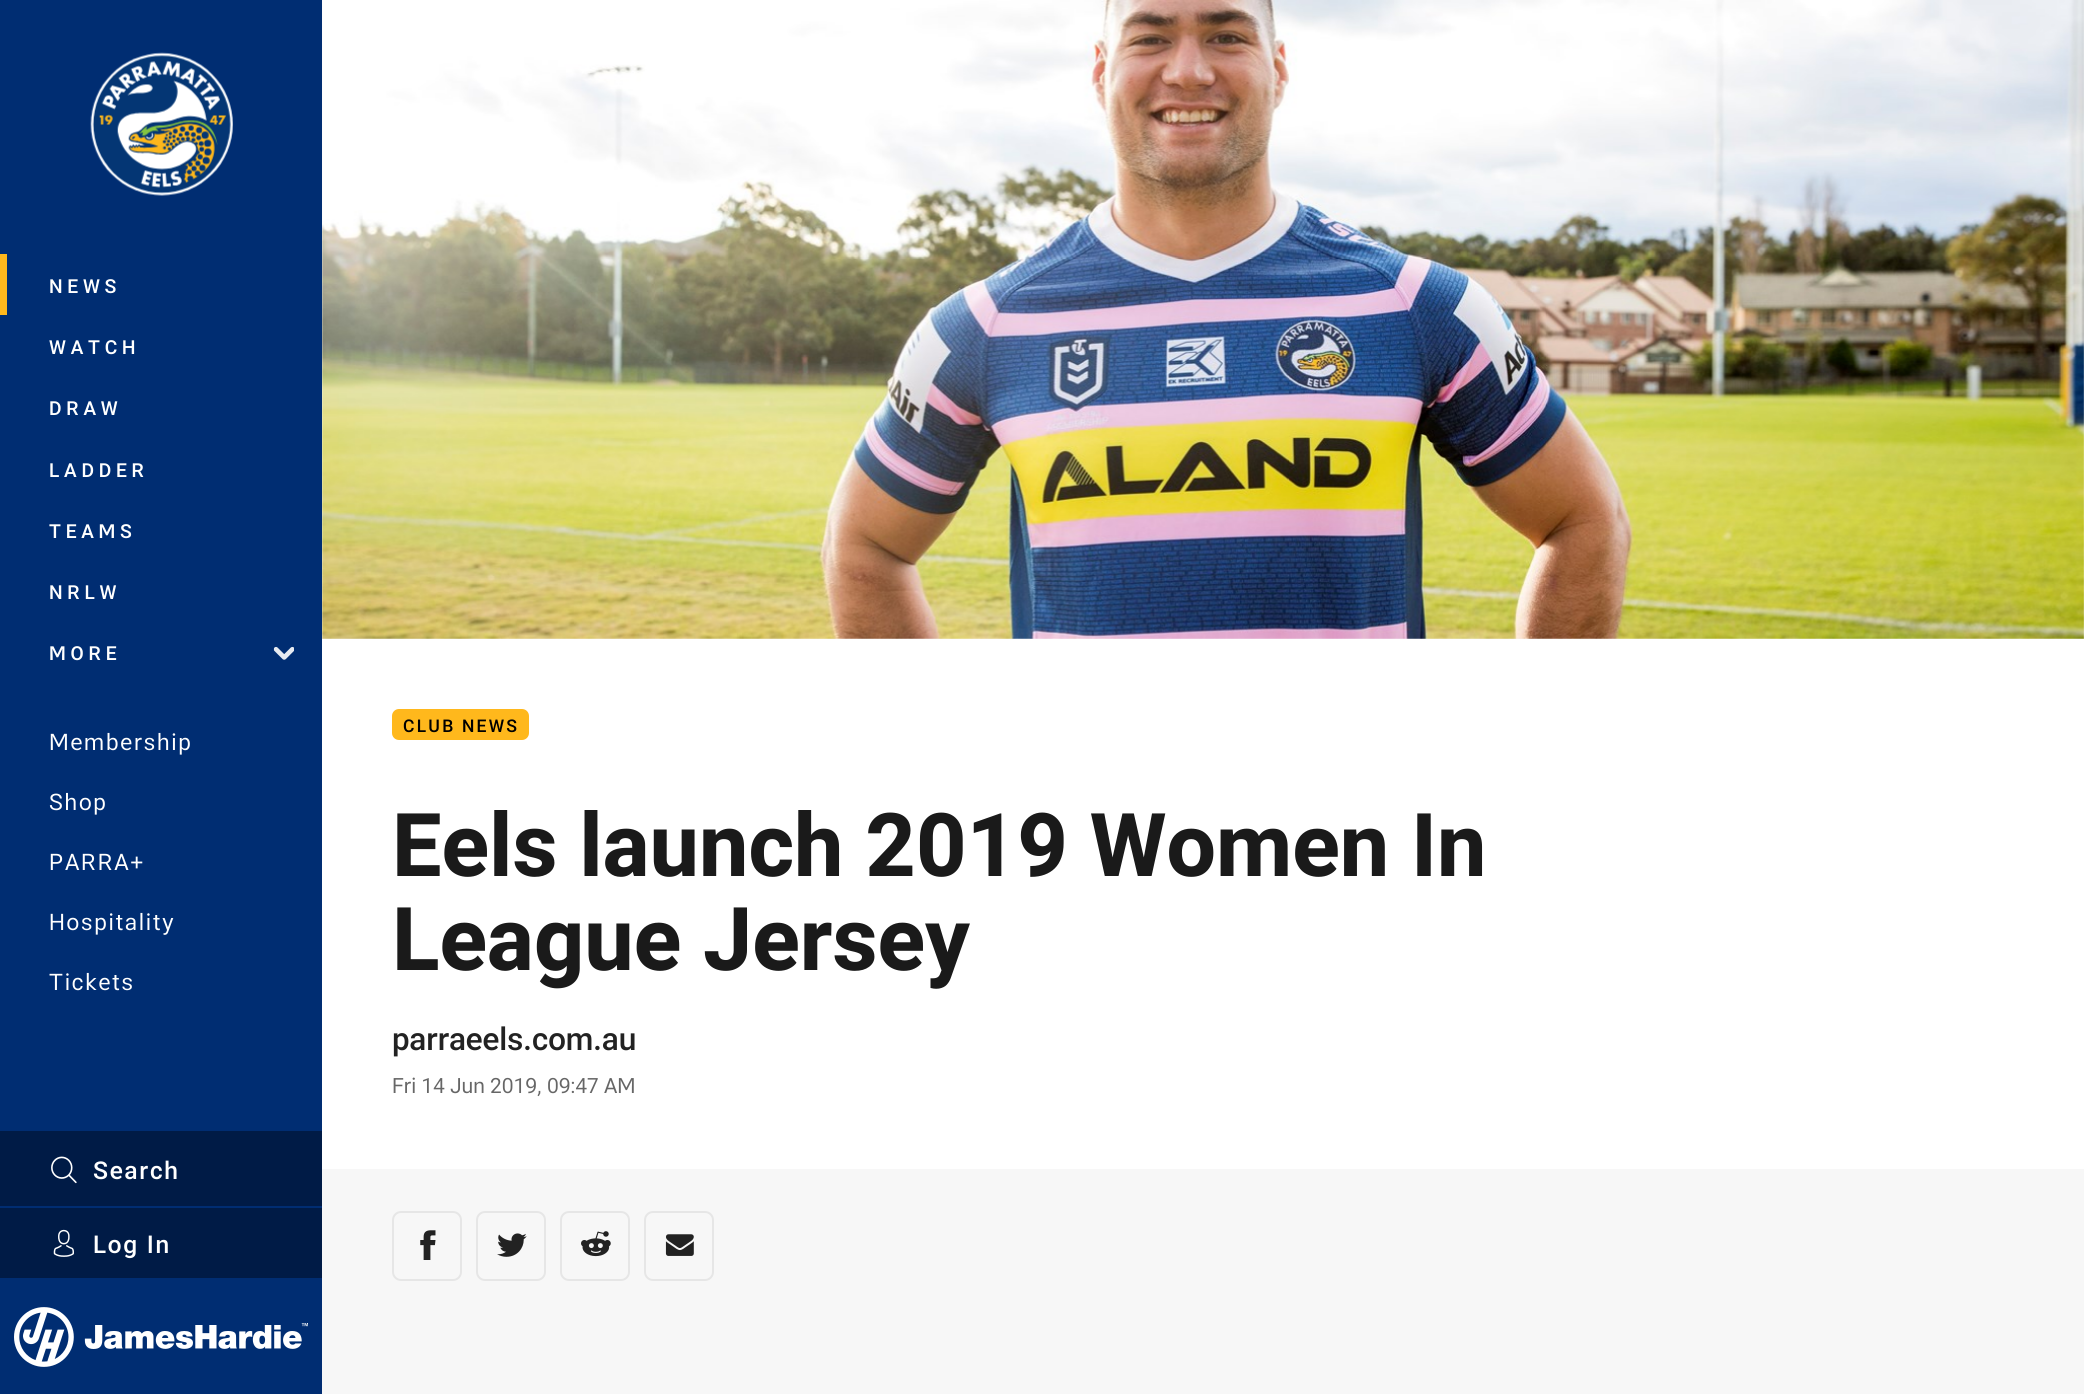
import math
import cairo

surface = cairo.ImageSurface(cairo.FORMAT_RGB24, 2084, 1394)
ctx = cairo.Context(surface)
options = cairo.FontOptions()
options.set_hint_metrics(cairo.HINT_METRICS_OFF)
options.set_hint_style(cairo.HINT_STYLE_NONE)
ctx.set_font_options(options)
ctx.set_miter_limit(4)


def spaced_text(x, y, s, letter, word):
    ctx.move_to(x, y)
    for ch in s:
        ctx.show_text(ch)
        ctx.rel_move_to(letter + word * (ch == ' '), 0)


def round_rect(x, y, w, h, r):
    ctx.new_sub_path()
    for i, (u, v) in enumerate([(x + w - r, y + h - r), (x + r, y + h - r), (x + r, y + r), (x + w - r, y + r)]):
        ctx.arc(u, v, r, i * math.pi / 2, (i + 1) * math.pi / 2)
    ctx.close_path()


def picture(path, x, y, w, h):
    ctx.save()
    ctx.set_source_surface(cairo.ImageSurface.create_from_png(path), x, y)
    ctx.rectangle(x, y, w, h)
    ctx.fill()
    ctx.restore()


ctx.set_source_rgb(0.965, 0.965, 0.965)
ctx.paint()
ctx.set_source_rgb(0, 0.176, 0.447)
ctx.rectangle(0, 0, 322, 1394)
ctx.fill()
picture("img1.png", 90, 52, 143, 144)
ctx.set_source_rgb(1, 0.722, 0.11)
ctx.rectangle(0, 254, 7, 61)
ctx.fill()
ctx.select_font_face("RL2 Medium")
ctx.set_font_size(19.25)
ctx.set_source_rgb(1, 1, 1)
spaced_text(49, 293, "NEWS", 4.75, 0)
spaced_text(49, 354, "WATCH", 4.75, 0)
spaced_text(49, 415, "DRAW", 4.75, 0)
spaced_text(49, 477, "LADDER", 4.75, 0)
spaced_text(49, 538, "TEAMS", 4.75, 0)
spaced_text(49, 599, "NRLW", 4.75, 0)
spaced_text(49, 660, "MORE", 4.75, 0)
picture("img2.png", 273, 646, 21, 14)
ctx.select_font_face("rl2")
ctx.set_font_size(22.75)
spaced_text(49, 750, "Membership", 1.75, 0)
spaced_text(49, 810, "Shop", 1.75, 0)
spaced_text(49, 870, "PARRA+", 1.75, 0)
spaced_text(49, 930, "Hospitality", 1.75, 0)
spaced_text(49, 990, "Tickets", 1.75, 0)
ctx.set_source_rgb(0, 0.106, 0.275)
ctx.rectangle(0, 1131, 322, 75)
ctx.fill()
picture("img3.png", 51, 1156, 26, 28)
ctx.select_font_face("RL2 Medium")
ctx.set_font_size(24.5)
ctx.set_source_rgb(1, 1, 1)
spaced_text(93, 1179, "Search", 1.75, 0)
ctx.set_source_rgb(0, 0.106, 0.275)
ctx.rectangle(0, 1208, 322, 70)
ctx.fill()
picture("img4.png", 53, 1229, 21, 28)
ctx.set_source_rgb(1, 1, 1)
spaced_text(93, 1253, "Log In", 1.75, 0)
picture("img5.png", 14, 1307, 294, 60)
picture("img6.png", 322, 0, 1762, 639)
ctx.rectangle(322, 639, 1762, 530)
ctx.fill()
ctx.set_source_rgb(1, 0.722, 0.11)
round_rect(392, 709, 137, 31, 7)
ctx.fill()
ctx.set_font_size(17.5)
ctx.set_source_rgb(0, 0, 0)
spaced_text(403, 732, "CLUB NEWS", 2.25, 0)
ctx.select_font_face("RL2", cairo.FONT_SLANT_NORMAL, cairo.FONT_WEIGHT_BOLD)
ctx.set_font_size(88)
ctx.set_source_rgb(0.102, 0.102, 0.102)
ctx.move_to(392, 876)
ctx.show_text("Eels launch 2019 Women In")
ctx.move_to(392, 970)
ctx.show_text("League Jersey")
ctx.select_font_face("RL2 Medium")
ctx.set_font_size(31.5)
ctx.set_source_rgb(0.133, 0.133, 0.133)
ctx.move_to(392, 1050)
ctx.show_text("parraeels.com.au")
ctx.select_font_face("rl2")
ctx.set_font_size(21)
ctx.set_source_rgb(0.4, 0.4, 0.4)
ctx.move_to(392, 1093)
ctx.show_text("Fri 14 Jun 2019, 09:47 AM")
round_rect(393, 1212, 68, 68, 8)
ctx.set_source_rgb(0.902, 0.902, 0.902)
ctx.stroke()
picture("img7.png", 420, 1230, 16, 30)
round_rect(477, 1212, 68, 68, 8)
ctx.stroke()
picture("img8.png", 497, 1233, 30, 24)
round_rect(561, 1212, 68, 68, 8)
ctx.stroke()
picture("img9.png", 581, 1231, 30, 26)
round_rect(645, 1212, 68, 68, 8)
ctx.stroke()
picture("img10.png", 665, 1234, 29, 22)
surface.write_to_png("page.png")
